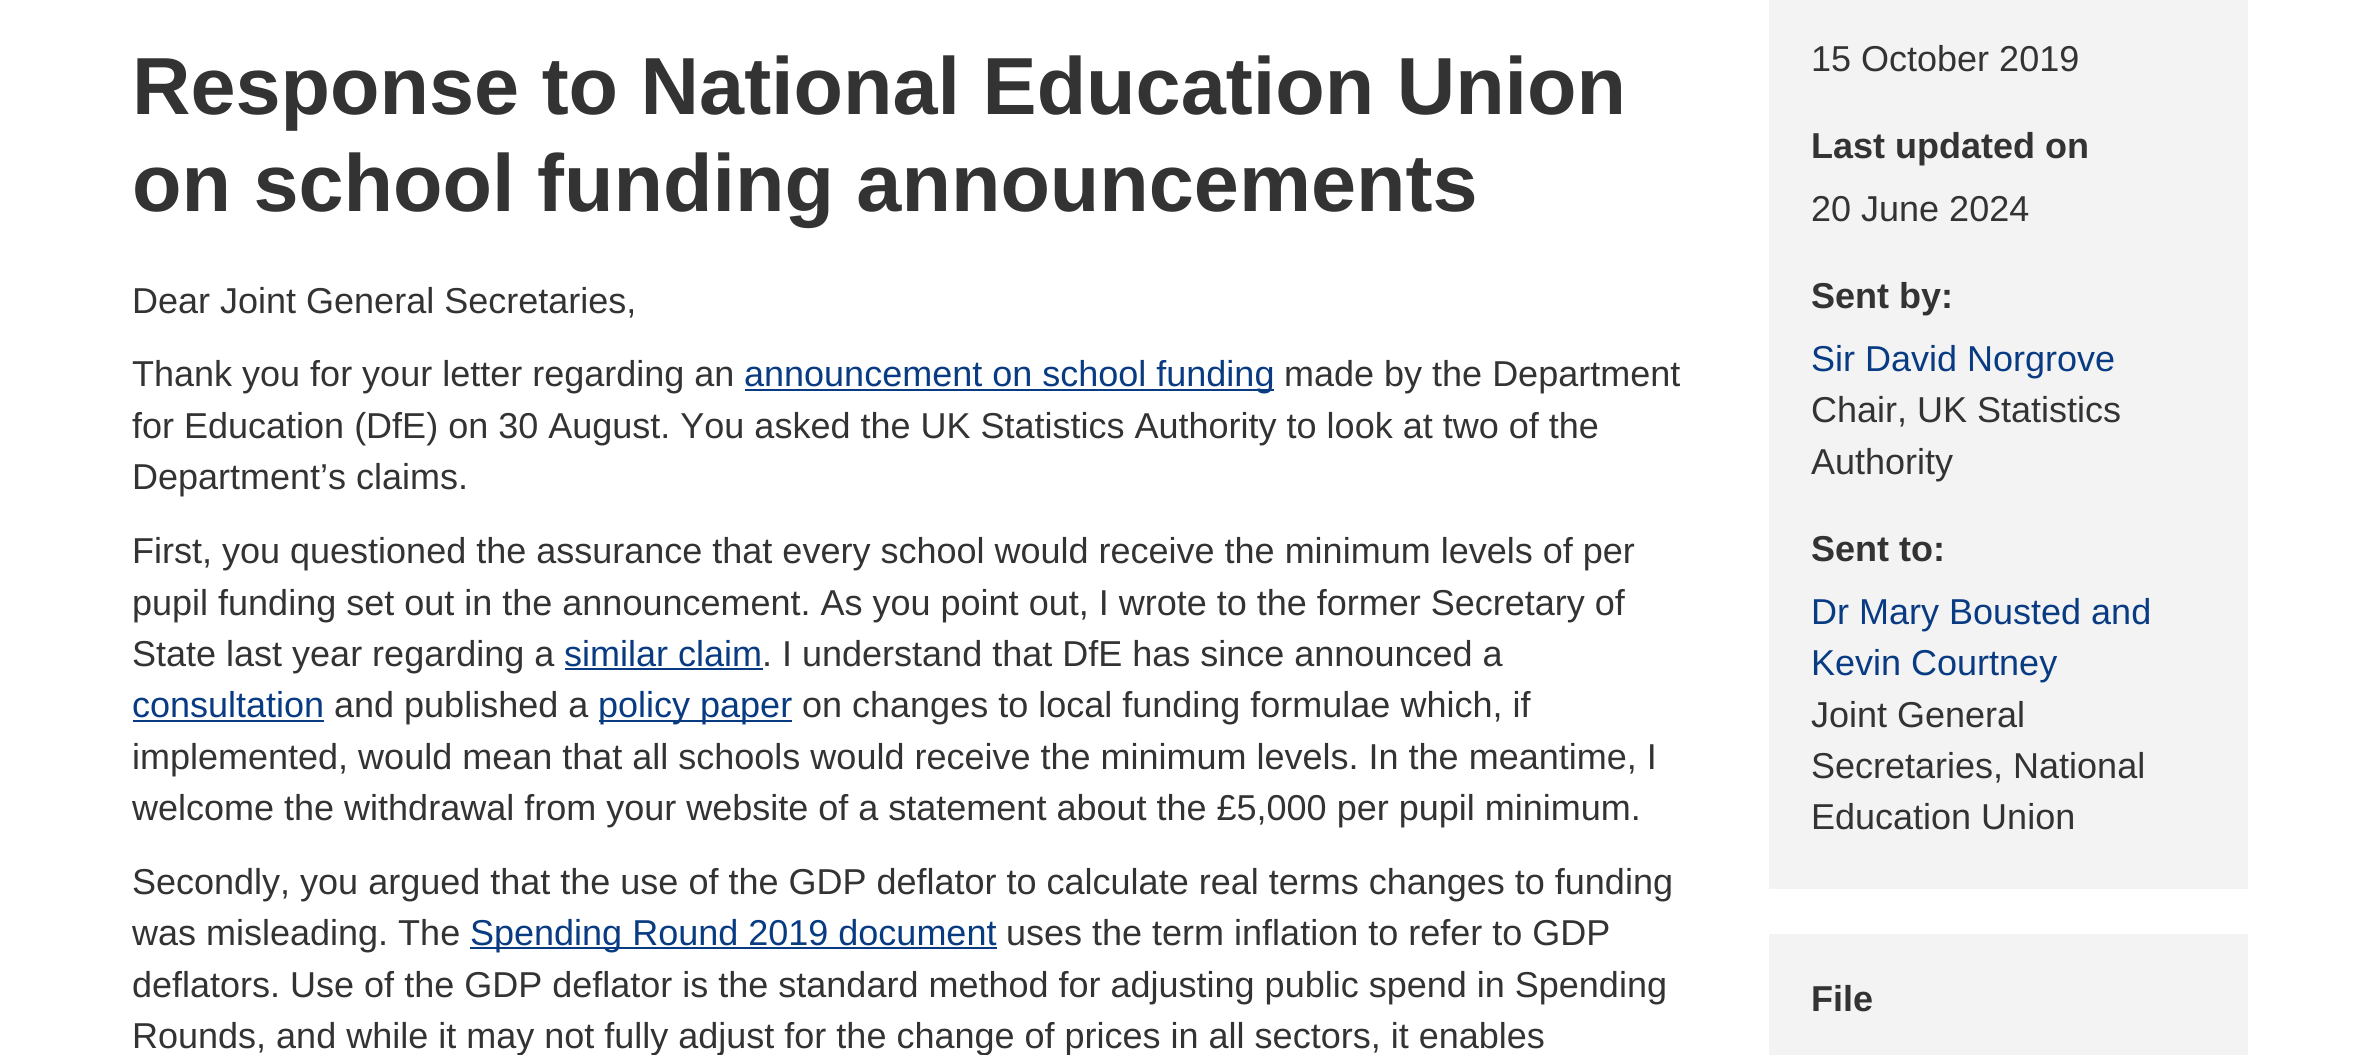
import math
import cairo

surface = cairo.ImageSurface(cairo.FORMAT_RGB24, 2378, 1055)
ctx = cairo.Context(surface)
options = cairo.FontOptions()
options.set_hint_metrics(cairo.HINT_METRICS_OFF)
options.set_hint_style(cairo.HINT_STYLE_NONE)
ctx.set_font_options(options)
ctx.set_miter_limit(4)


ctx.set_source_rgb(1, 1, 1)
ctx.paint()
ctx.select_font_face("Liberation Sans", cairo.FONT_SLANT_NORMAL, cairo.FONT_WEIGHT_BOLD)
ctx.set_font_size(81)
ctx.set_source_rgb(0.2, 0.2, 0.2)
ctx.move_to(132, 114)
ctx.show_text("Response to National Education Union")
ctx.move_to(132, 211)
ctx.show_text("on school funding announcements")
ctx.select_font_face("Liberation Sans")
ctx.set_font_size(36)
ctx.move_to(132, 313)
ctx.show_text("Dear Joint General Secretaries,")
ctx.move_to(132, 386)
ctx.show_text("Thank you for your letter regarding an")
ctx.set_source_rgb(0.039, 0.231, 0.514)
ctx.rectangle(745, 389, 529, 2)
ctx.fill()
ctx.move_to(744, 386)
ctx.show_text("announcement on school funding")
ctx.set_source_rgb(0.2, 0.2, 0.2)
ctx.move_to(1284, 386)
ctx.show_text("made by the Department")
ctx.move_to(132, 438)
ctx.show_text("for Education (DfE) on 30 August. You asked the UK Statistics Authority to look at two of the")
ctx.move_to(132, 489)
ctx.show_text("Department’s claims.")
ctx.move_to(132, 563)
ctx.show_text("First, you questioned the assurance that every school would receive the minimum levels of per")
ctx.move_to(132, 615)
ctx.show_text("pupil funding set out in the announcement. As you point out, I wrote to the former Secretary of")
ctx.move_to(132, 666)
ctx.show_text("State last year regarding a")
ctx.set_source_rgb(0.039, 0.231, 0.514)
ctx.move_to(564, 666)
ctx.show_text("similar claim")
ctx.rectangle(565, 668, 198, 2)
ctx.fill()
ctx.set_source_rgb(0.2, 0.2, 0.2)
ctx.move_to(762, 666)
ctx.show_text(". I understand that DfE has since announced a")
ctx.set_source_rgb(0.039, 0.231, 0.514)
ctx.move_to(132, 717)
ctx.show_text("consultation")
ctx.rectangle(133, 720, 191, 2)
ctx.fill()
ctx.set_source_rgb(0.2, 0.2, 0.2)
ctx.move_to(334, 717)
ctx.show_text("and published a")
ctx.set_source_rgb(0.039, 0.231, 0.514)
ctx.rectangle(599, 720, 193, 2)
ctx.fill()
ctx.move_to(598, 717)
ctx.show_text("policy paper")
ctx.set_source_rgb(0.2, 0.2, 0.2)
ctx.move_to(802, 717)
ctx.show_text("on changes to local funding formulae which, if")
ctx.move_to(132, 769)
ctx.show_text("implemented, would mean that all schools would receive the minimum levels. In the meantime, I")
ctx.move_to(132, 820)
ctx.show_text("welcome the withdrawal from your website of a statement about the £5,000 per pupil minimum.")
ctx.move_to(132, 894)
ctx.show_text("Secondly, you argued that the use of the GDP deflator to calculate real terms changes to funding")
ctx.move_to(132, 945)
ctx.show_text("was misleading. The")
ctx.set_source_rgb(0.039, 0.231, 0.514)
ctx.rectangle(470, 947, 527, 2)
ctx.fill()
ctx.move_to(470, 945)
ctx.show_text("Spending Round 2019 document")
ctx.set_source_rgb(0.2, 0.2, 0.2)
ctx.move_to(1006, 945)
ctx.show_text("uses the term inflation to refer to GDP")
ctx.move_to(132, 997)
ctx.show_text("deflators. Use of the GDP deflator is the standard method for adjusting public spend in Spending")
ctx.move_to(132, 1048)
ctx.show_text("Rounds, and while it may not fully adjust for the change of prices in all sectors, it enables")
ctx.set_source_rgb(0.953, 0.953, 0.953)
ctx.rectangle(1769, 0, 479, 889)
ctx.fill()
ctx.set_source_rgb(0.2, 0.2, 0.2)
ctx.move_to(1811, 71)
ctx.show_text("15 October 2019")
ctx.select_font_face("Liberation Sans", cairo.FONT_SLANT_NORMAL, cairo.FONT_WEIGHT_BOLD)
ctx.move_to(1811, 158)
ctx.show_text("Last updated on")
ctx.select_font_face("Liberation Sans")
ctx.move_to(1811, 221)
ctx.show_text("20 June 2024")
ctx.select_font_face("Liberation Sans", cairo.FONT_SLANT_NORMAL, cairo.FONT_WEIGHT_BOLD)
ctx.move_to(1811, 308)
ctx.show_text("Sent by:")
ctx.select_font_face("Liberation Sans")
ctx.set_source_rgb(0.039, 0.231, 0.514)
ctx.move_to(1811, 371)
ctx.show_text("Sir David Norgrove")
ctx.set_source_rgb(0.2, 0.2, 0.2)
ctx.move_to(1811, 422)
ctx.show_text("Chair, UK Statistics")
ctx.move_to(1811, 474)
ctx.show_text("Authority")
ctx.select_font_face("Liberation Sans", cairo.FONT_SLANT_NORMAL, cairo.FONT_WEIGHT_BOLD)
ctx.move_to(1811, 561)
ctx.show_text("Sent to:")
ctx.select_font_face("Liberation Sans")
ctx.set_source_rgb(0.039, 0.231, 0.514)
ctx.move_to(1811, 624)
ctx.show_text("Dr Mary Bousted and")
ctx.move_to(1811, 675)
ctx.show_text("Kevin Courtney")
ctx.set_source_rgb(0.2, 0.2, 0.2)
ctx.move_to(1811, 727)
ctx.show_text("Joint General")
ctx.move_to(1811, 778)
ctx.show_text("Secretaries, National")
ctx.move_to(1811, 829)
ctx.show_text("Education Union")
ctx.set_source_rgb(0.953, 0.953, 0.953)
ctx.rectangle(1769, 934, 479, 121)
ctx.fill()
ctx.select_font_face("Liberation Sans", cairo.FONT_SLANT_NORMAL, cairo.FONT_WEIGHT_BOLD)
ctx.set_source_rgb(0.2, 0.2, 0.2)
ctx.move_to(1811, 1011)
ctx.show_text("File")
surface.write_to_png("page.png")
